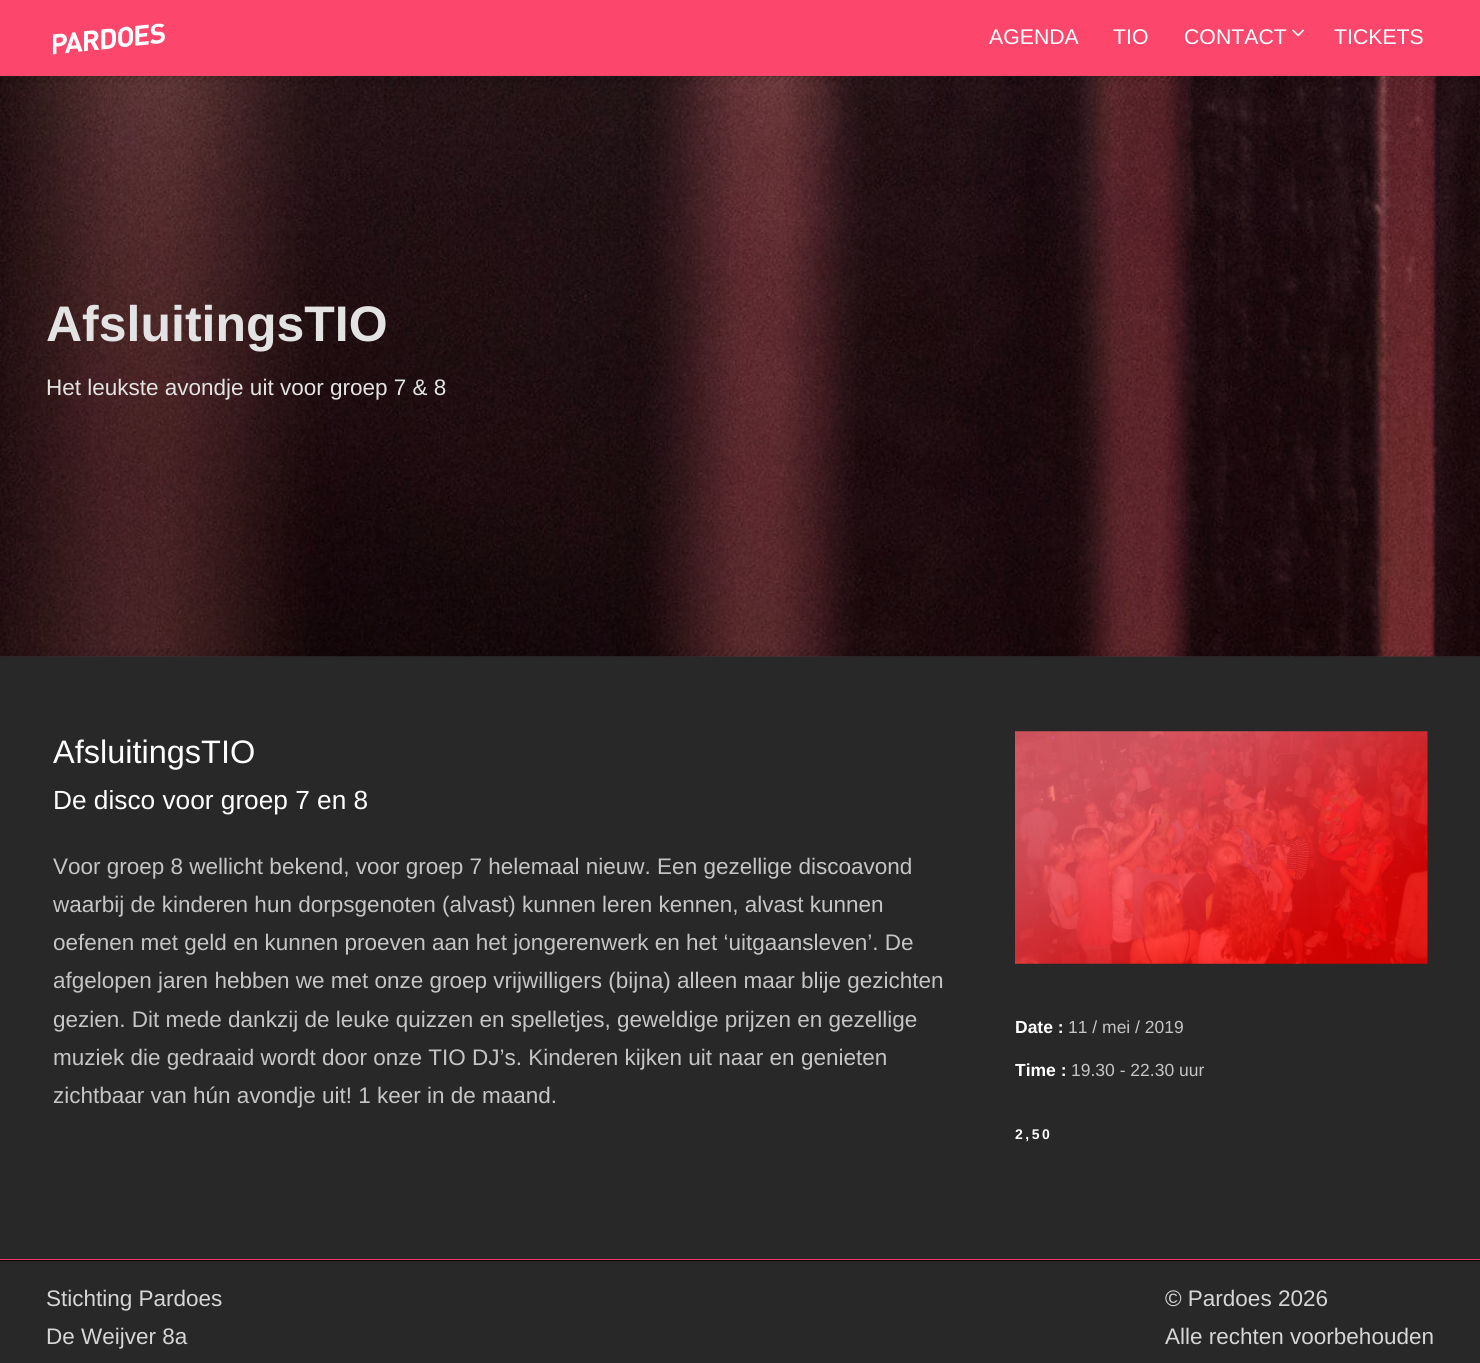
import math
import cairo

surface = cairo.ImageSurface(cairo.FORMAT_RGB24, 1480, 1363)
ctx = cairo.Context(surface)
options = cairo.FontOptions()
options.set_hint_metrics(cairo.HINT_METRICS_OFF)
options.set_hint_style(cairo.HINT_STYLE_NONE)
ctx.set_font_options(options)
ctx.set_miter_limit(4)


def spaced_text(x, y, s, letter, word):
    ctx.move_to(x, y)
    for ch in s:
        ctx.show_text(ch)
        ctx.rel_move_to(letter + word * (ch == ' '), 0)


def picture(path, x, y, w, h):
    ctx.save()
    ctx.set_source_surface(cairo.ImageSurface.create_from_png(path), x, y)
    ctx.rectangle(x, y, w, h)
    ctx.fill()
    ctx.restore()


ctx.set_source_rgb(0.157, 0.157, 0.157)
ctx.paint()
ctx.set_source_rgb(0.988, 0.275, 0.42)
ctx.rectangle(0, 0, 1480, 76)
ctx.fill()
picture("img1.png", 53, 23, 112, 32)
ctx.select_font_face("Liberation Sans")
ctx.set_font_size(21.25)
ctx.set_source_rgb(1, 1, 1)
ctx.move_to(989, 44)
ctx.show_text("AGENDA")
ctx.move_to(1113, 44)
ctx.show_text("TIO")
ctx.move_to(1184, 44)
ctx.show_text("CONTACT")
picture("img2.png", 1292, 29, 12, 8)
ctx.move_to(1334, 44)
ctx.show_text("TICKETS")
picture("img4.png", 0, 76, 1480, 581)
picture("img3.png", 0, 76, 1480, 7)
ctx.select_font_face("Liberation Sans", cairo.FONT_SLANT_NORMAL, cairo.FONT_WEIGHT_BOLD)
ctx.set_font_size(50)
ctx.set_source_rgb(0.89, 0.89, 0.89)
ctx.move_to(46, 341)
ctx.show_text("AfsluitingsTIO")
ctx.select_font_face("Liberation Sans")
ctx.set_font_size(22.5)
ctx.move_to(46, 395)
ctx.show_text("Het leukste avondje uit voor groep 7 & 8")
picture("img5.png", 0, 650, 1476, 7)
ctx.set_font_size(32.5)
ctx.set_source_rgb(1, 1, 1)
ctx.move_to(53, 763)
ctx.show_text("AfsluitingsTIO")
ctx.set_font_size(26.25)
ctx.move_to(53, 809)
ctx.show_text("De disco voor groep 7 en 8")
ctx.set_font_size(22.5)
ctx.set_source_rgb(0.773, 0.773, 0.773)
ctx.move_to(53, 874)
ctx.show_text("Voor groep 8 wellicht bekend, voor groep 7 helemaal nieuw. Een gezellige discoavond")
ctx.move_to(53, 912)
ctx.show_text("waarbij de kinderen hun dorpsgenoten (alvast) kunnen leren kennen, alvast kunnen")
ctx.move_to(53, 950)
ctx.show_text("oefenen met geld en kunnen proeven aan het jongerenwerk en het ‘uitgaansleven’. De")
ctx.move_to(53, 988)
ctx.show_text("afgelopen jaren hebben we met onze groep vrijwilligers (bijna) alleen maar blije gezichten")
ctx.move_to(53, 1027)
ctx.show_text("gezien. Dit mede dankzij de leuke quizzen en spelletjes, geweldige prijzen en gezellige")
ctx.move_to(53, 1065)
ctx.show_text("muziek die gedraaid wordt door onze TIO DJ’s. Kinderen kijken uit naar en genieten")
ctx.move_to(53, 1103)
ctx.show_text("zichtbaar van hún avondje uit! 1 keer in de maand.")
picture("img6.png", 1015, 731, 413, 233)
ctx.select_font_face("Liberation Sans", cairo.FONT_SLANT_NORMAL, cairo.FONT_WEIGHT_BOLD)
ctx.set_font_size(17.5)
ctx.set_source_rgb(1, 1, 1)
ctx.move_to(1015, 1033)
ctx.show_text("Date :")
ctx.select_font_face("Liberation Sans")
ctx.set_source_rgb(0.773, 0.773, 0.773)
ctx.move_to(1068, 1033)
ctx.show_text("11 / mei / 2019")
ctx.select_font_face("Liberation Sans", cairo.FONT_SLANT_NORMAL, cairo.FONT_WEIGHT_BOLD)
ctx.set_source_rgb(1, 1, 1)
ctx.move_to(1015, 1076)
ctx.show_text("Time :")
ctx.select_font_face("Liberation Sans")
ctx.set_source_rgb(0.773, 0.773, 0.773)
ctx.move_to(1071, 1076)
ctx.show_text("19.30 - 22.30 uur")
ctx.select_font_face("Liberation Sans", cairo.FONT_SLANT_NORMAL, cairo.FONT_WEIGHT_BOLD)
ctx.set_font_size(14)
ctx.set_source_rgb(1, 1, 1)
spaced_text(1015, 1139, "2,50", 2.5, 0)
ctx.set_source_rgb(0.976, 0.224, 0.42)
ctx.rectangle(0, 1259, 1480, 1)
ctx.fill()
ctx.set_source_rgb(0, 0, 0)
ctx.rectangle(0, 1260, 1480, 1)
ctx.fill()
ctx.select_font_face("Liberation Sans")
ctx.set_font_size(22.5)
ctx.set_source_rgb(0.839, 0.839, 0.839)
ctx.move_to(46, 1306)
ctx.show_text("Stichting Pardoes")
ctx.move_to(46, 1344)
ctx.show_text("De Weijver 8a")
ctx.move_to(1165, 1306)
ctx.show_text("© Pardoes 2026")
ctx.move_to(1165, 1344)
ctx.show_text("Alle rechten voorbehouden")
surface.write_to_png("page.png")
